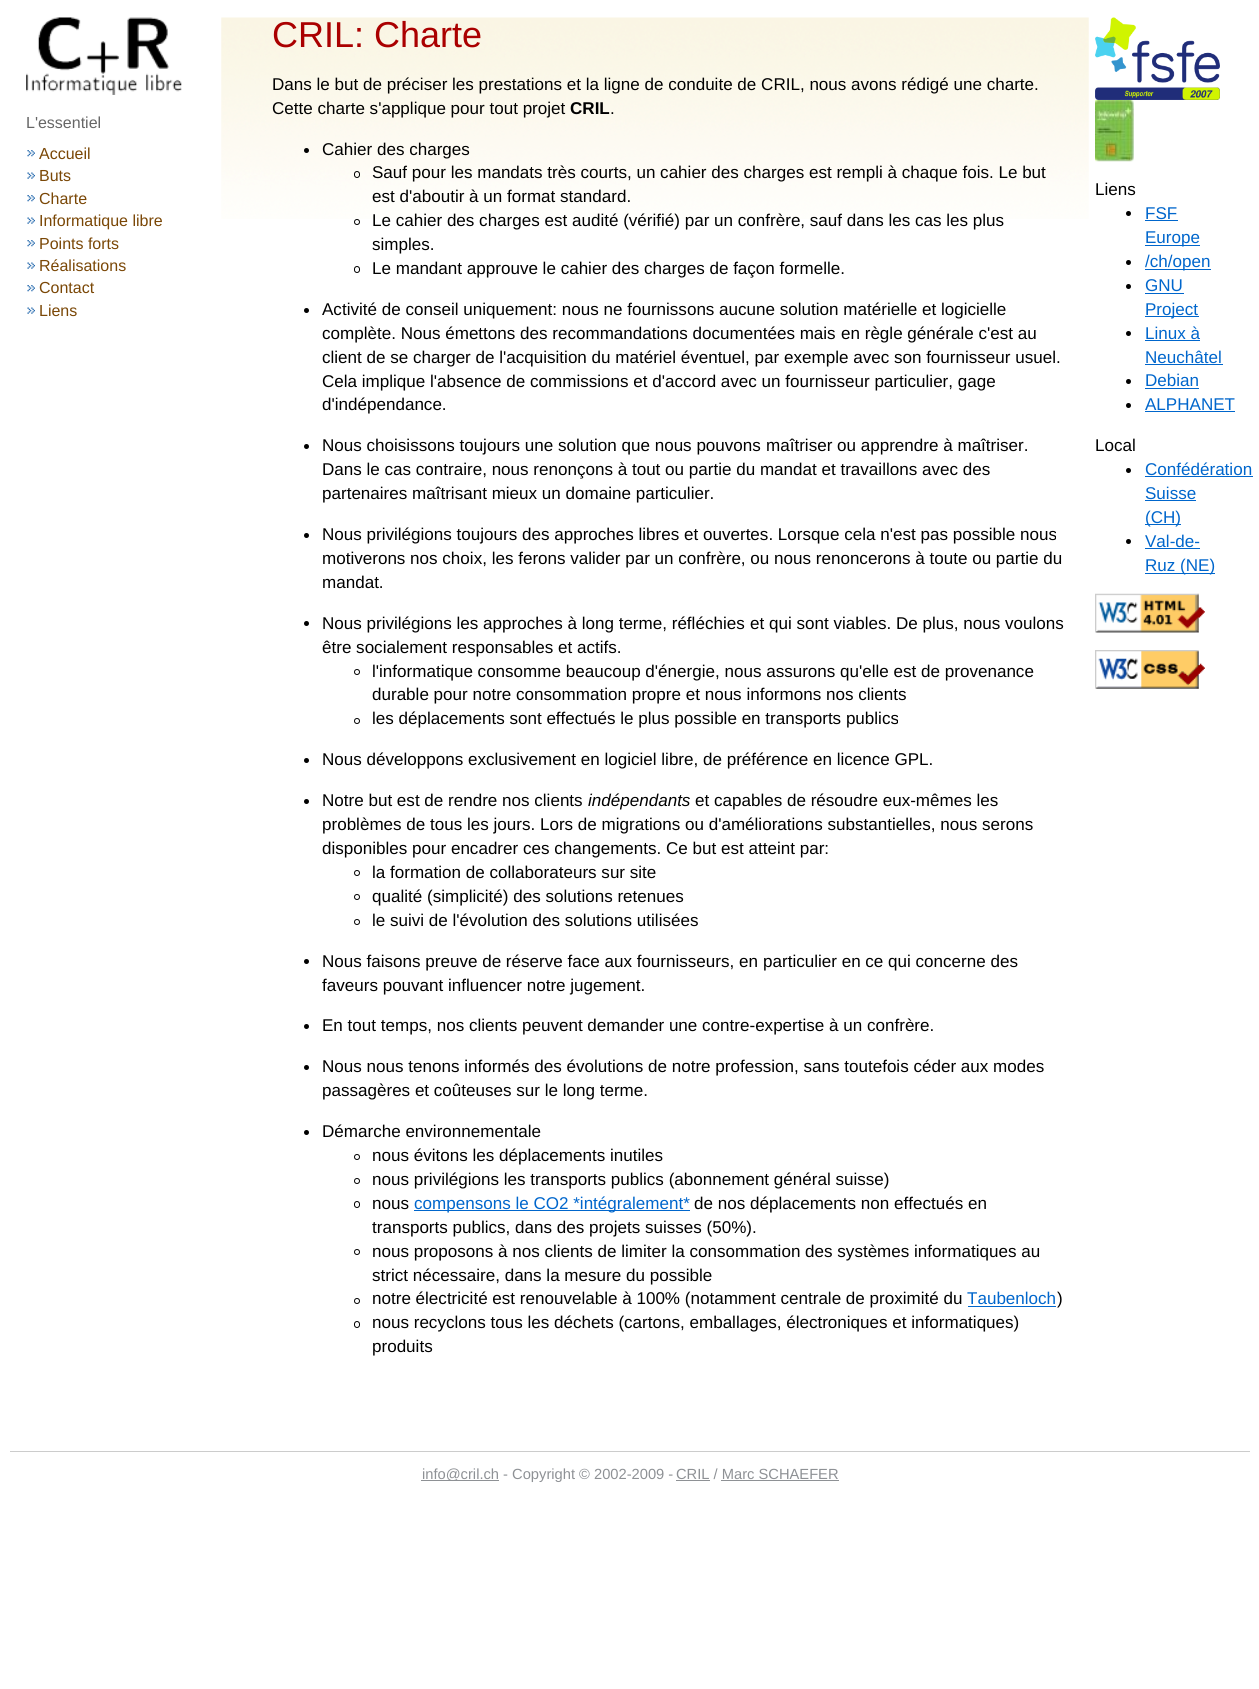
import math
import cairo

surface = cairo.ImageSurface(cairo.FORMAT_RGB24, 1259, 1689)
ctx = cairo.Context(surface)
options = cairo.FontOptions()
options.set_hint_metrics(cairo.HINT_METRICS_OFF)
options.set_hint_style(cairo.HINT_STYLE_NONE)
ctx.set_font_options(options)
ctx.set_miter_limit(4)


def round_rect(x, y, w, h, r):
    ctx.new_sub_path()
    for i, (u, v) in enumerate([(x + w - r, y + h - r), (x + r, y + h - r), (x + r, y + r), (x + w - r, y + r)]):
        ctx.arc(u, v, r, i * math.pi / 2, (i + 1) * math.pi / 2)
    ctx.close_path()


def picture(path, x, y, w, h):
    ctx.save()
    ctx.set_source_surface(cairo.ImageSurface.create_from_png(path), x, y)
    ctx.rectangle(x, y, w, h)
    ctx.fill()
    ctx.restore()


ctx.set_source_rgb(1, 1, 1)
ctx.paint()
picture("img1.png", 26, 17, 156, 78)
ctx.select_font_face("Liberation Sans")
ctx.set_font_size(16)
ctx.set_source_rgb(0.4, 0.4, 0.4)
ctx.move_to(26, 128)
ctx.show_text("L'essentiel")
picture("img2.png", 27, 150, 8, 7)
ctx.set_source_rgb(0.478, 0.278, 0.027)
ctx.move_to(39, 159)
ctx.show_text("Accueil")
picture("img3.png", 27, 172, 8, 7)
ctx.move_to(39, 181)
ctx.show_text("Buts")
picture("img2.png", 27, 195, 8, 7)
ctx.move_to(39, 204)
ctx.show_text("Charte")
picture("img3.png", 27, 217, 8, 7)
ctx.move_to(39, 226)
ctx.show_text("Informatique libre")
picture("img2.png", 27, 240, 8, 7)
ctx.move_to(39, 249)
ctx.show_text("Points forts")
picture("img3.png", 27, 262, 8, 7)
ctx.move_to(39, 271)
ctx.show_text("Réalisations")
picture("img2.png", 27, 285, 8, 7)
ctx.move_to(39, 293)
ctx.show_text("Contact")
picture("img3.png", 27, 307, 8, 7)
ctx.move_to(39, 316)
ctx.show_text("Liens")
picture("img4.png", 221, 17, 868, 202)
ctx.set_font_size(36)
ctx.set_source_rgb(0.667, 0, 0)
ctx.move_to(272, 47)
ctx.show_text("CRIL: Charte")
ctx.set_font_size(17.05)
ctx.set_source_rgb(0, 0, 0)
ctx.move_to(272, 90)
ctx.show_text("Dans le but de préciser les prestations et la ligne de conduite de CRIL, nous avons rédigé une charte.")
ctx.move_to(272, 114)
ctx.show_text("Cette charte s'applique pour tout projet")
ctx.select_font_face("Liberation Sans", cairo.FONT_SLANT_NORMAL, cairo.FONT_WEIGHT_BOLD)
ctx.move_to(570, 114)
ctx.show_text("CRIL")
ctx.select_font_face("Liberation Sans")
ctx.move_to(610, 114)
ctx.show_text(".")
ctx.new_path()
ctx.arc(306.5, 150.5, 2.5, 0, 2 * math.pi)
ctx.fill()
ctx.move_to(322, 155)
ctx.show_text("Cahier des charges")
round_rect(354.5, 171.5, 5, 6, 2.5)
ctx.set_line_width(1)
ctx.stroke()
ctx.move_to(372, 178)
ctx.show_text("Sauf pour les mandats très courts, un cahier des charges est rempli à chaque fois. Le but")
ctx.move_to(372, 202)
ctx.show_text("est d'aboutir à un format standard.")
ctx.new_path()
ctx.arc(357, 222, 2.5, 0, 2 * math.pi)
ctx.stroke()
ctx.move_to(372, 226)
ctx.show_text("Le cahier des charges est audité (vérifié) par un confrère, sauf dans les cas les plus")
ctx.move_to(372, 250)
ctx.show_text("simples.")
round_rect(354.5, 266.5, 5, 6, 2.5)
ctx.stroke()
ctx.move_to(372, 274)
ctx.show_text("Le mandant approuve le cahier des charges de façon formelle.")
ctx.new_path()
ctx.arc(306.5, 310.5, 2.5, 0, 2 * math.pi)
ctx.fill()
ctx.move_to(322, 315)
ctx.show_text("Activité de conseil uniquement: nous ne fournissons aucune solution matérielle et logicielle")
ctx.move_to(322, 339)
ctx.show_text("complète. Nous émettons des recommandations documentées mais")
ctx.move_to(841, 339)
ctx.show_text("en règle générale c'est au")
ctx.move_to(322, 363)
ctx.show_text("client de se charger de l'acquisition du matériel éventuel, par exemple avec son fournisseur usuel.")
ctx.move_to(322, 387)
ctx.show_text("Cela implique l'absence de commissions et d'accord avec un fournisseur particulier, gage")
ctx.move_to(322, 410)
ctx.show_text("d'indépendance.")
ctx.new_path()
ctx.arc(306.5, 446.5, 2.5, 0, 2 * math.pi)
ctx.fill()
ctx.move_to(322, 451)
ctx.show_text("Nous choisissons toujours une solution que nous pouvons")
ctx.move_to(766, 451)
ctx.show_text("maîtriser ou apprendre à maîtriser.")
ctx.move_to(322, 475)
ctx.show_text("Dans le cas contraire, nous renonçons à tout ou partie du mandat et travaillons avec des")
ctx.move_to(322, 499)
ctx.show_text("partenaires maîtrisant mieux un domaine particulier.")
ctx.new_path()
ctx.arc(306.5, 535.5, 2.5, 0, 2 * math.pi)
ctx.fill()
ctx.move_to(322, 540)
ctx.show_text("Nous privilégions toujours des approches libres et ouvertes. Lorsque cela n'est pas possible nous")
ctx.move_to(322, 564)
ctx.show_text("motiverons nos choix, les ferons valider par un confrère, ou nous renoncerons à toute ou partie du")
ctx.move_to(322, 588)
ctx.show_text("mandat.")
ctx.new_path()
ctx.arc(306.5, 623.5, 2.5, 0, 2 * math.pi)
ctx.fill()
ctx.move_to(322, 629)
ctx.show_text("Nous privilégions les approches à long terme, réfléchies")
ctx.move_to(750, 629)
ctx.show_text("et qui sont viables. De plus, nous voulons")
ctx.move_to(322, 653)
ctx.show_text("être socialement responsables et actifs.")
ctx.new_path()
ctx.arc(357, 672, 2.5, 0, 2 * math.pi)
ctx.stroke()
ctx.move_to(372, 677)
ctx.show_text("l'informatique consomme beaucoup d'énergie, nous assurons qu'elle est de provenance")
ctx.move_to(372, 700)
ctx.show_text("durable pour notre consommation propre et nous informons nos clients")
ctx.new_path()
ctx.arc(357, 721, 2.5, 0, 2 * math.pi)
ctx.stroke()
ctx.move_to(372, 724)
ctx.show_text("les déplacements sont effectués le plus possible en transports publics")
ctx.new_path()
ctx.arc(306.5, 760.5, 2.5, 0, 2 * math.pi)
ctx.fill()
ctx.move_to(322, 765)
ctx.show_text("Nous développons exclusivement en logiciel libre, de préférence en licence GPL.")
ctx.new_path()
ctx.arc(306.5, 801.5, 2.5, 0, 2 * math.pi)
ctx.fill()
ctx.move_to(322, 806)
ctx.show_text("Notre but est de rendre nos clients")
ctx.select_font_face("Liberation Sans", cairo.FONT_SLANT_ITALIC)
ctx.move_to(588, 806)
ctx.show_text("indépendants")
ctx.select_font_face("Liberation Sans")
ctx.move_to(695, 806)
ctx.show_text("et capables de résoudre eux-mêmes les")
ctx.move_to(322, 830)
ctx.show_text("problèmes de tous les jours. Lors de migrations ou d'améliorations substantielles, nous serons")
ctx.move_to(322, 854)
ctx.show_text("disponibles pour encadrer ces changements. Ce but est atteint par:")
ctx.new_path()
ctx.arc(357, 873, 2.5, 0, 2 * math.pi)
ctx.stroke()
ctx.move_to(372, 878)
ctx.show_text("la formation de collaborateurs sur site")
ctx.new_path()
ctx.arc(357, 897, 2.5, 0, 2 * math.pi)
ctx.stroke()
ctx.move_to(372, 902)
ctx.show_text("qualité (simplicité) des solutions retenues")
ctx.new_path()
ctx.arc(357, 922, 2.5, 0, 2 * math.pi)
ctx.stroke()
ctx.move_to(372, 926)
ctx.show_text("le suivi de l'évolution des solutions utilisées")
ctx.new_path()
ctx.arc(306.5, 961.5, 2.5, 0, 2 * math.pi)
ctx.fill()
ctx.move_to(322, 967)
ctx.show_text("Nous faisons preuve de réserve face aux fournisseurs, en")
ctx.move_to(763, 967)
ctx.show_text("particulier en ce qui concerne des")
ctx.move_to(322, 991)
ctx.show_text("faveurs pouvant influencer notre jugement.")
ctx.new_path()
ctx.arc(306.5, 1026.5, 2.5, 0, 2 * math.pi)
ctx.fill()
ctx.move_to(322, 1031)
ctx.show_text("En tout temps, nos clients peuvent demander une contre-expertise à un confrère.")
ctx.new_path()
ctx.arc(306.5, 1067.5, 2.5, 0, 2 * math.pi)
ctx.fill()
ctx.move_to(322, 1072)
ctx.show_text("Nous nous tenons informés des évolutions de notre profession, sans toutefois céder aux modes")
ctx.move_to(322, 1096)
ctx.show_text("passagères et coûteuses sur le long terme.")
ctx.new_path()
ctx.arc(306.5, 1132.5, 2.5, 0, 2 * math.pi)
ctx.fill()
ctx.move_to(322, 1137)
ctx.show_text("Démarche environnementale")
ctx.new_path()
ctx.arc(357, 1157, 2.5, 0, 2 * math.pi)
ctx.stroke()
ctx.move_to(372, 1161)
ctx.show_text("nous évitons les déplacements inutiles")
ctx.new_path()
ctx.arc(357, 1181, 2.5, 0, 2 * math.pi)
ctx.stroke()
ctx.move_to(372, 1185)
ctx.show_text("nous privilégions les transports publics (abonnement général suisse)")
round_rect(354.5, 1201.5, 5, 6, 2.5)
ctx.stroke()
ctx.move_to(372, 1209)
ctx.show_text("nous")
ctx.set_source_rgb(0, 0.4, 0.8)
ctx.rectangle(414, 1210, 276, 1)
ctx.fill()
ctx.move_to(414, 1209)
ctx.show_text("compensons le CO2 *intégralement*")
ctx.set_source_rgb(0, 0, 0)
ctx.move_to(694, 1209)
ctx.show_text("de nos déplacements non effectués en")
ctx.move_to(372, 1233)
ctx.show_text("transports publics, dans des projets suisses (50%).")
ctx.new_path()
ctx.arc(357, 1252, 2.5, 0, 2 * math.pi)
ctx.stroke()
ctx.move_to(372, 1257)
ctx.show_text("nous proposons à nos clients de limiter la consommation des systèmes informatiques au")
ctx.move_to(372, 1281)
ctx.show_text("strict nécessaire, dans la mesure du possible")
ctx.new_path()
ctx.arc(357, 1301, 2.5, 0, 2 * math.pi)
ctx.stroke()
ctx.move_to(372, 1304)
ctx.show_text("notre électricité est renouvelable à 100% (notamment centrale de proximité du")
ctx.set_source_rgb(0, 0.4, 0.8)
ctx.move_to(967, 1304)
ctx.show_text("Taubenloch")
ctx.rectangle(968, 1306, 88, 1)
ctx.fill()
ctx.set_source_rgb(0, 0, 0)
ctx.move_to(1057, 1304)
ctx.show_text(")")
round_rect(354.5, 1321.5, 5, 6, 2.5)
ctx.stroke()
ctx.move_to(372, 1328)
ctx.show_text("nous recyclons tous les déchets (cartons, emballages, électroniques et informatiques)")
ctx.move_to(372, 1352)
ctx.show_text("produits")
picture("img5.png", 1095, 17, 125, 83)
picture("img6.png", 1095, 100, 39, 62)
ctx.move_to(1095, 195)
ctx.show_text("Liens")
ctx.new_path()
ctx.arc(1128.5, 213.5, 2.5, 0, 2 * math.pi)
ctx.fill()
ctx.set_source_rgb(0, 0.4, 0.8)
ctx.move_to(1145, 219)
ctx.show_text("FSF")
ctx.rectangle(1145, 220, 33, 1)
ctx.fill()
ctx.rectangle(1145, 245, 55, 1)
ctx.fill()
ctx.move_to(1145, 243)
ctx.show_text("Europe")
ctx.set_source_rgb(0, 0, 0)
ctx.new_path()
ctx.arc(1128.5, 262.5, 2.5, 0, 2 * math.pi)
ctx.fill()
ctx.set_source_rgb(0, 0.4, 0.8)
ctx.rectangle(1145, 269, 66, 1)
ctx.fill()
ctx.move_to(1145, 267)
ctx.show_text("/ch/open")
ctx.set_source_rgb(0, 0, 0)
ctx.new_path()
ctx.arc(1128.5, 286.5, 2.5, 0, 2 * math.pi)
ctx.fill()
ctx.set_source_rgb(0, 0.4, 0.8)
ctx.move_to(1145, 291)
ctx.show_text("GNU")
ctx.rectangle(1145, 293, 39, 1)
ctx.fill()
ctx.rectangle(1145, 316, 54, 1)
ctx.fill()
ctx.move_to(1145, 315)
ctx.show_text("Project")
ctx.set_source_rgb(0, 0, 0)
ctx.new_path()
ctx.arc(1128.5, 333.5, 2.5, 0, 2 * math.pi)
ctx.fill()
ctx.set_source_rgb(0, 0.4, 0.8)
ctx.move_to(1145, 339)
ctx.show_text("Linux à")
ctx.rectangle(1145, 340, 55, 1)
ctx.fill()
ctx.move_to(1145, 363)
ctx.show_text("Neuchâtel")
ctx.rectangle(1145, 364, 78, 1)
ctx.fill()
ctx.set_source_rgb(0, 0, 0)
ctx.arc(1128.5, 381.5, 2.5, 0, 2 * math.pi)
ctx.fill()
ctx.set_source_rgb(0, 0.4, 0.8)
ctx.move_to(1145, 386)
ctx.show_text("Debian")
ctx.rectangle(1145, 388, 54, 1)
ctx.fill()
ctx.set_source_rgb(0, 0, 0)
ctx.arc(1128.5, 405.5, 2.5, 0, 2 * math.pi)
ctx.fill()
ctx.set_source_rgb(0, 0.4, 0.8)
ctx.move_to(1145, 410)
ctx.show_text("ALPHANET")
ctx.rectangle(1145, 411, 90, 1)
ctx.fill()
ctx.set_source_rgb(0, 0, 0)
ctx.move_to(1095, 451)
ctx.show_text("Local")
ctx.new_path()
ctx.arc(1128.5, 470.5, 2.5, 0, 2 * math.pi)
ctx.fill()
ctx.set_source_rgb(0, 0.4, 0.8)
ctx.move_to(1145, 475)
ctx.show_text("Confédération")
ctx.rectangle(1145, 476, 108, 1)
ctx.fill()
ctx.move_to(1145, 499)
ctx.show_text("Suisse")
ctx.rectangle(1145, 500, 51, 1)
ctx.fill()
ctx.rectangle(1145, 524, 36, 1)
ctx.fill()
ctx.move_to(1145, 523)
ctx.show_text("(CH)")
ctx.set_source_rgb(0, 0, 0)
ctx.new_path()
ctx.arc(1128.5, 541.5, 2.5, 0, 2 * math.pi)
ctx.fill()
ctx.set_source_rgb(0, 0.4, 0.8)
ctx.move_to(1145, 547)
ctx.show_text("Val-de-")
ctx.rectangle(1145, 548, 55, 1)
ctx.fill()
ctx.rectangle(1145, 573, 70, 1)
ctx.fill()
ctx.move_to(1145, 571)
ctx.show_text("Ruz (NE)")
picture("img7.png", 1095, 593, 110, 40)
picture("img8.png", 1095, 650, 110, 39)
ctx.set_source_rgb(0.8, 0.8, 0.8)
ctx.rectangle(10, 1451, 1240, 1)
ctx.fill()
ctx.set_source_rgb(0.557, 0.569, 0.584)
ctx.rectangle(421, 1480, 78, 1)
ctx.fill()
ctx.set_font_size(14.7)
ctx.move_to(422, 1479)
ctx.show_text("info@cril.ch - Copyright © 2002-2009 -")
ctx.move_to(676, 1479)
ctx.show_text("CRIL / Marc SCHAEFER")
ctx.rectangle(676, 1480, 34, 1)
ctx.fill()
ctx.rectangle(721, 1480, 118, 1)
ctx.fill()
surface.write_to_png("page.png")
